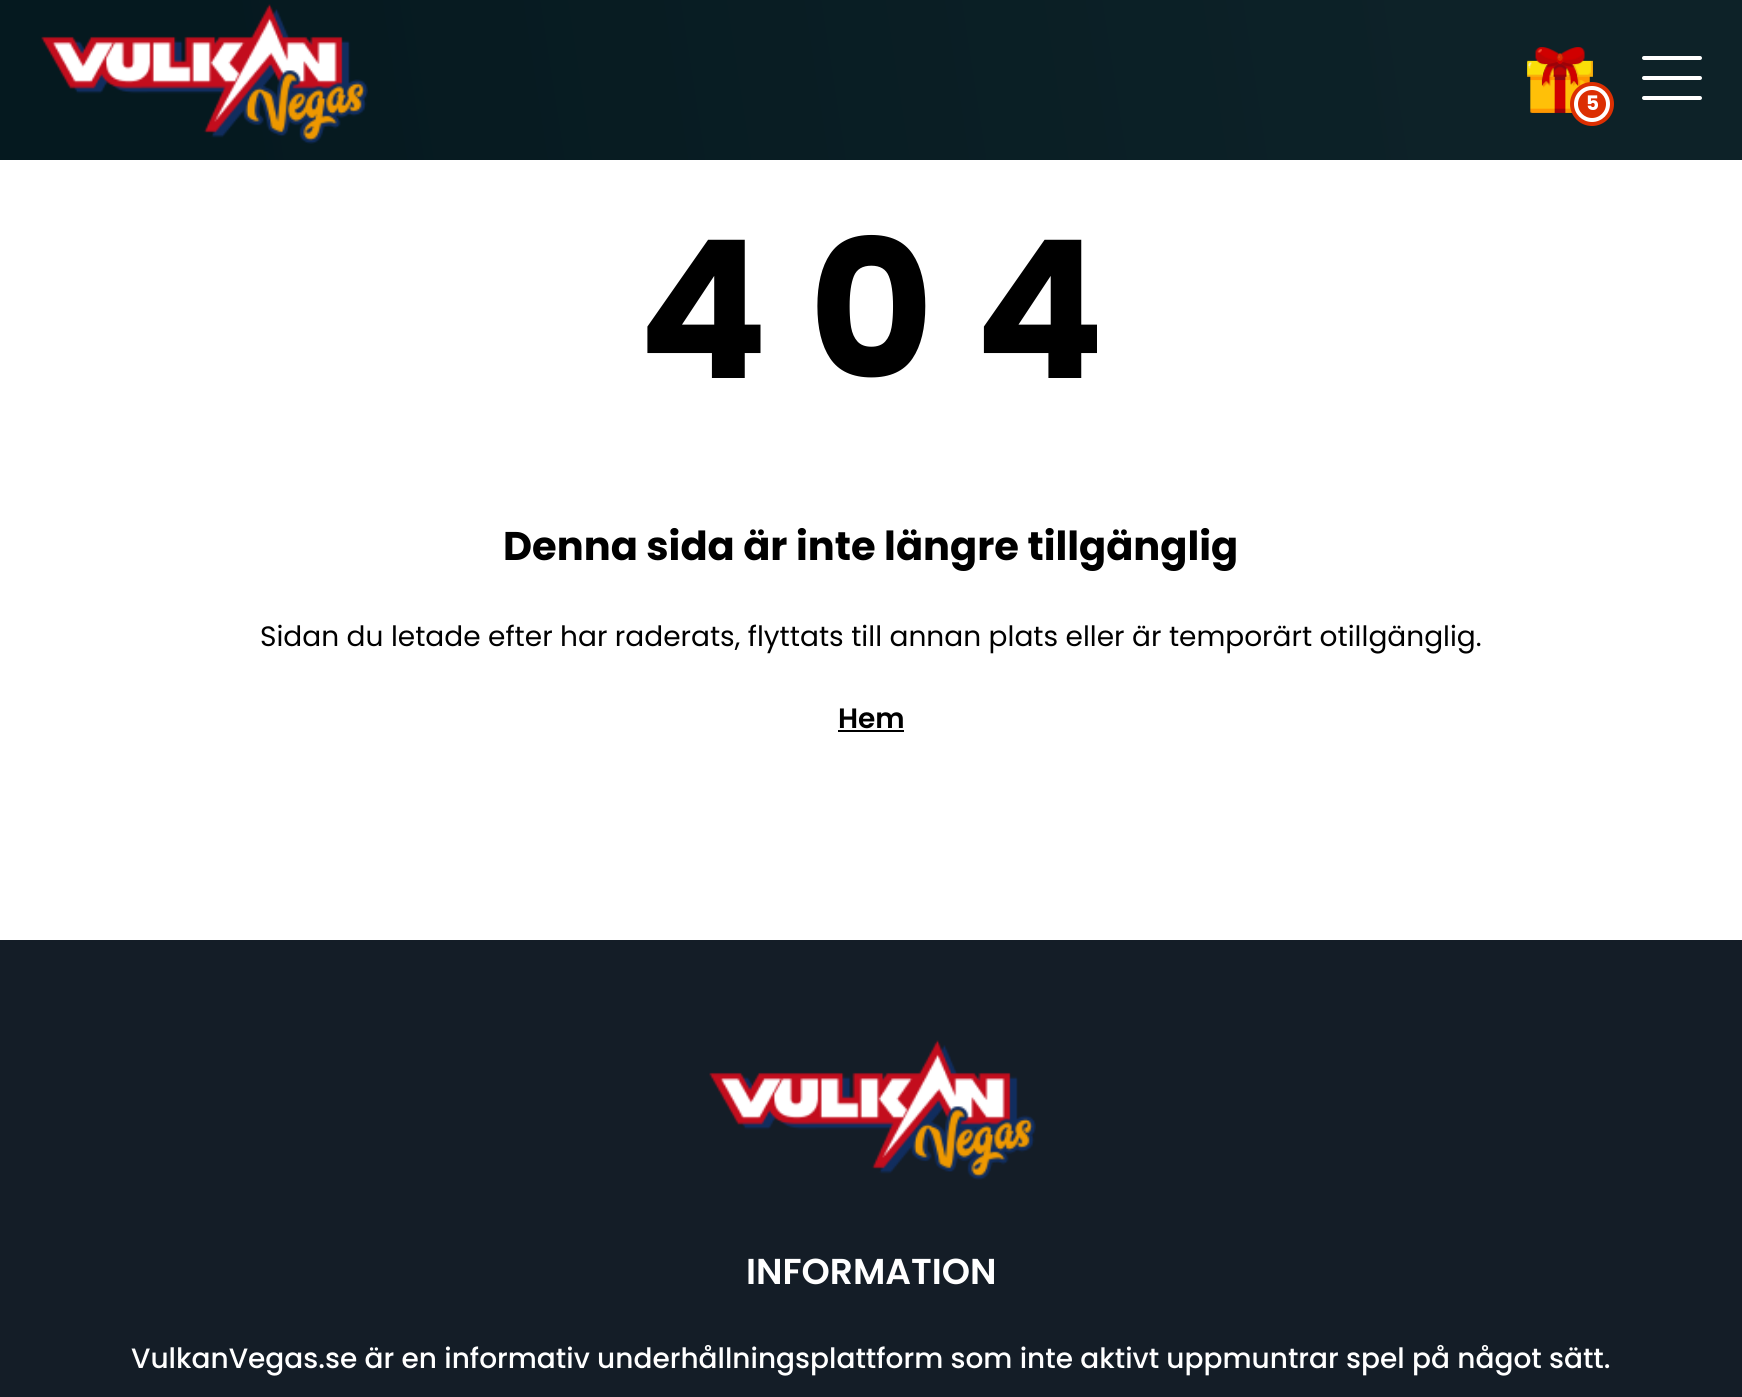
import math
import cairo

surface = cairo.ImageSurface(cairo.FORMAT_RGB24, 1742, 1397)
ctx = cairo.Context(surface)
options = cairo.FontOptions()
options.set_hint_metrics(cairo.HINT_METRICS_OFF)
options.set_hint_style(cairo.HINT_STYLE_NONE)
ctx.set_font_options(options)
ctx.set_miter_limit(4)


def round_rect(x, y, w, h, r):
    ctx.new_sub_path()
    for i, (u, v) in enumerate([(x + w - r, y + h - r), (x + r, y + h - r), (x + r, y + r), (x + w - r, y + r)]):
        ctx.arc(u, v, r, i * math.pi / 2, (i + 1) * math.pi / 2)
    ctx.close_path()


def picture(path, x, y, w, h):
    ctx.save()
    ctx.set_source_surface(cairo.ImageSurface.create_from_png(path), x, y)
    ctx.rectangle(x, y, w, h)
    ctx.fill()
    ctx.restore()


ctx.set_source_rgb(1, 1, 1)
ctx.paint()
gradient = cairo.LinearGradient(1734, -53, 8, 213)
gradient.add_color_stop_rgba(0.17, 0.051, 0.133, 0.157, 1)
gradient.add_color_stop_rgba(0.88, 0.02, 0.098, 0.122, 1)
ctx.set_source(gradient)
ctx.rectangle(0, 0, 1742, 160)
ctx.fill()
picture("img1.png", 41, 4, 327, 140)
ctx.set_source_rgb(1, 1, 1)
round_rect(1642, 56, 60, 4, 2)
ctx.fill()
round_rect(1642, 76, 60, 4, 2)
ctx.fill()
round_rect(1642, 96, 60, 4, 2)
ctx.fill()
picture("img2.png", 1527, 47, 66, 66)
ctx.set_source_rgb(0.863, 0.184, 0.008)
ctx.arc(1592, 104, 22, 0, 2 * math.pi)
ctx.fill()
ctx.arc(1592, 104, 16, 0, 2 * math.pi)
ctx.set_source_rgb(1, 1, 1)
ctx.set_line_width(4)
ctx.stroke()
ctx.select_font_face("Poppins", cairo.FONT_SLANT_NORMAL, cairo.FONT_WEIGHT_BOLD)
ctx.set_font_size(20)
ctx.move_to(1586, 110)
ctx.show_text("5")
ctx.set_font_size(192)
ctx.set_source_rgb(0, 0, 0)
ctx.move_to(638, 378)
ctx.show_text("4 0 4")
ctx.set_font_size(40)
ctx.move_to(503, 560)
ctx.show_text("Denna sida är inte längre tillgänglig")
ctx.select_font_face("Poppins")
ctx.set_font_size(28)
ctx.move_to(260, 646)
ctx.show_text("Sidan du letade efter har raderats, flyttats till annan plats eller är temporärt otillgänglig.")
ctx.select_font_face("Poppins SemiBold")
ctx.move_to(838, 728)
ctx.show_text("Hem")
ctx.rectangle(838, 730, 66, 2)
ctx.fill()
ctx.set_source_rgb(0.082, 0.114, 0.153)
ctx.rectangle(0, 940, 1742, 457)
ctx.fill()
picture("img3.png", 709, 1040, 327, 140)
ctx.set_font_size(36)
ctx.set_source_rgb(1, 1, 1)
ctx.move_to(746, 1284)
ctx.show_text("INFORMATION")
ctx.select_font_face("Poppins Medium")
ctx.set_font_size(28)
ctx.move_to(131, 1368)
ctx.show_text("VulkanVegas.se är en informativ underhållningsplattform som inte aktivt uppmuntrar spel på något sätt.")
surface.write_to_png("page.png")
